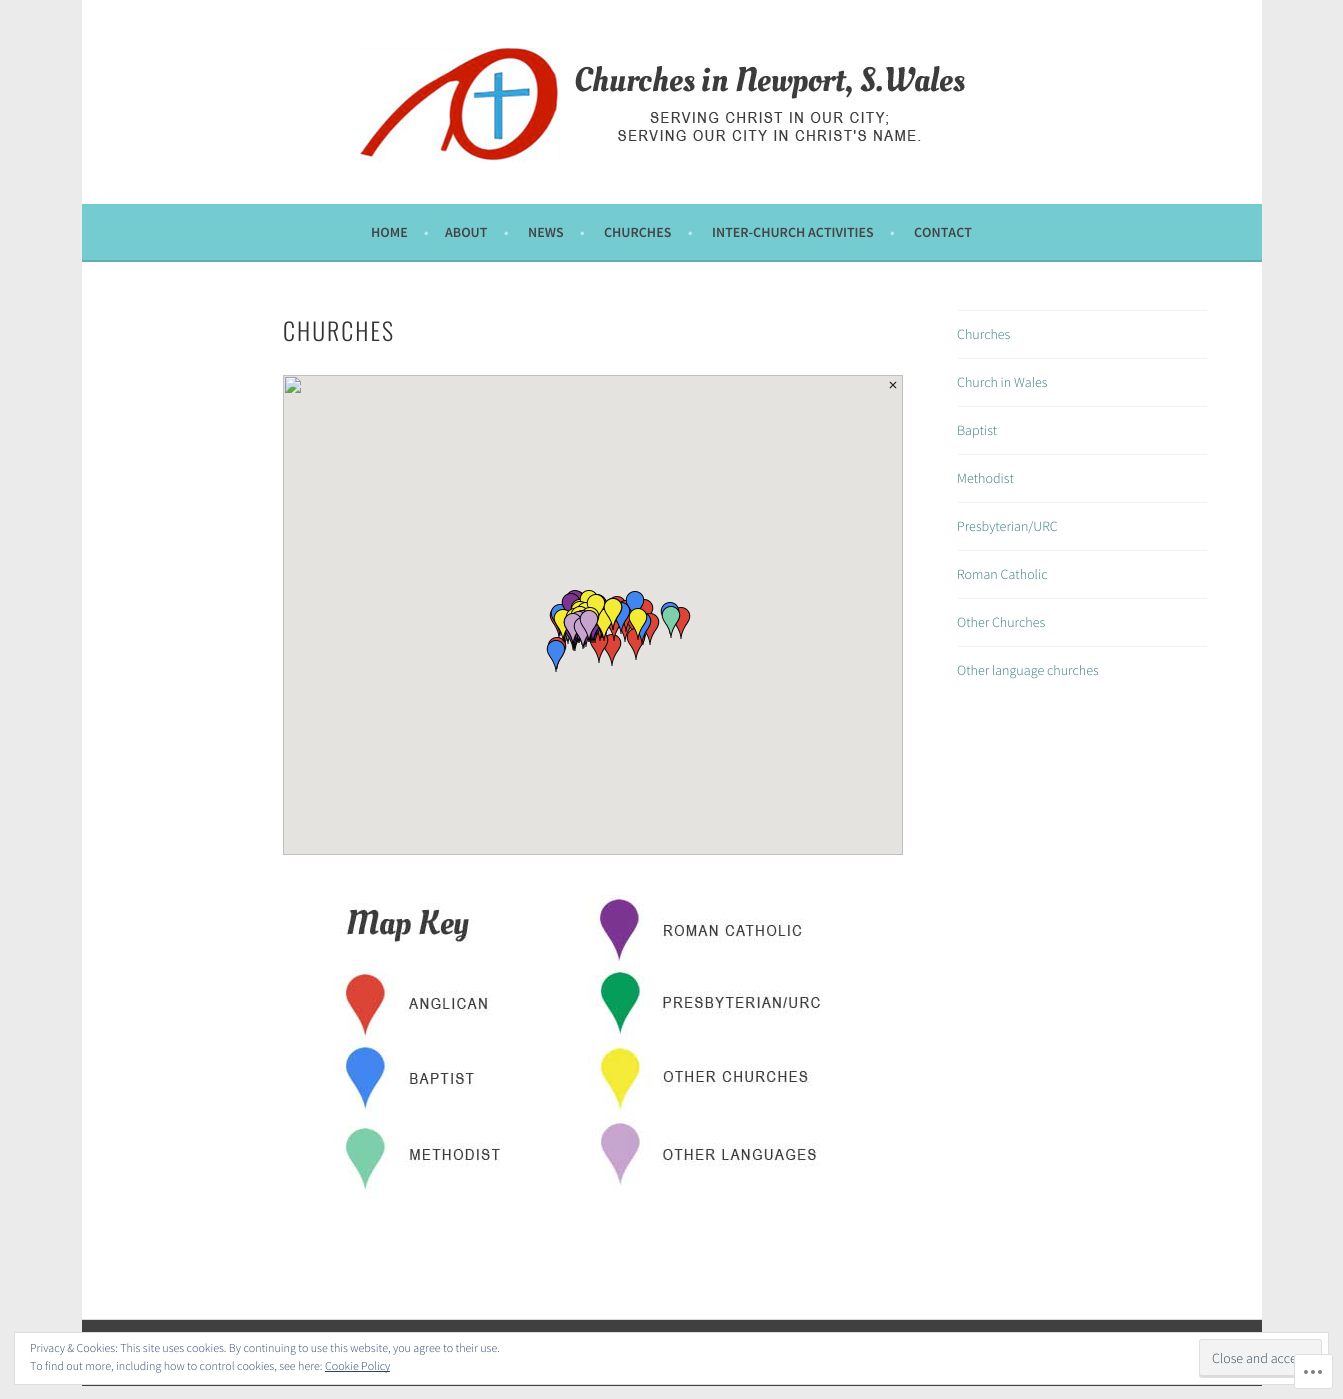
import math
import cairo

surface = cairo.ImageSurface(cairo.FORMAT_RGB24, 1343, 1399)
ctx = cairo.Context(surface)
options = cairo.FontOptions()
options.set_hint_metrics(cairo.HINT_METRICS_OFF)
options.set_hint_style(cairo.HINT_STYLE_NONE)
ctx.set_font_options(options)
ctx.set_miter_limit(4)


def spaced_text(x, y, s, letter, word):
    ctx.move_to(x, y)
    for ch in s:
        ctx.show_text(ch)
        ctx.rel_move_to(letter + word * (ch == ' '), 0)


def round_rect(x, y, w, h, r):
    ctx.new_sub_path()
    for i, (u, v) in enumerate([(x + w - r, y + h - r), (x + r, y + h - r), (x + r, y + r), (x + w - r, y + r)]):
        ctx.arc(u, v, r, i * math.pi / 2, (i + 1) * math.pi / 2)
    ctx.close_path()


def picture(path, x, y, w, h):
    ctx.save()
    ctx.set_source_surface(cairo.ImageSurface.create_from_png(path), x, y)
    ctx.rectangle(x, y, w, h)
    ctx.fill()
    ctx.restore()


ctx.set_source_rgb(0.918, 0.918, 0.918)
ctx.paint()
ctx.set_source_rgb(1, 1, 1)
ctx.rectangle(82, 0, 1180, 204)
ctx.fill()
picture("img1.png", 360, 48, 608, 114)
ctx.set_source_rgb(0.455, 0.8, 0.82)
ctx.rectangle(82, 204, 1180, 56)
ctx.fill()
ctx.set_source_rgb(0.388, 0.678, 0.698)
ctx.rectangle(82, 260, 1180, 2)
ctx.fill()
ctx.select_font_face("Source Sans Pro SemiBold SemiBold")
ctx.set_font_size(14)
ctx.set_source_rgb(0.267, 0.267, 0.267)
ctx.move_to(371, 237)
ctx.show_text("HOME")
ctx.set_source_rgb(0.757, 0.91, 0.918)
ctx.move_to(424, 237)
ctx.show_text("•")
ctx.set_source_rgb(0.267, 0.267, 0.267)
ctx.move_to(445, 237)
ctx.show_text("ABOUT")
ctx.set_source_rgb(0.757, 0.91, 0.918)
ctx.move_to(504, 237)
ctx.show_text("•")
ctx.set_source_rgb(0.267, 0.267, 0.267)
ctx.move_to(528, 237)
ctx.show_text("NEWS")
ctx.set_source_rgb(0.757, 0.91, 0.918)
ctx.move_to(580, 237)
ctx.show_text("•")
ctx.set_source_rgb(0.267, 0.267, 0.267)
ctx.move_to(604, 237)
ctx.show_text("CHURCHES")
ctx.set_source_rgb(0.757, 0.91, 0.918)
ctx.move_to(688, 237)
ctx.show_text("•")
ctx.set_source_rgb(0.267, 0.267, 0.267)
ctx.move_to(712, 237)
ctx.show_text("INTER-CHURCH ACTIVITIES")
ctx.set_source_rgb(0.757, 0.91, 0.918)
ctx.move_to(890, 237)
ctx.show_text("•")
ctx.set_source_rgb(0.267, 0.267, 0.267)
ctx.move_to(914, 237)
ctx.show_text("CONTACT")
ctx.set_source_rgb(1, 1, 1)
ctx.rectangle(82, 262, 1180, 1057)
ctx.fill()
ctx.select_font_face("Oswald Light")
ctx.set_font_size(24)
ctx.set_source_rgb(0.2, 0.2, 0.2)
spaced_text(283, 341, "CHURCHES", 2, 0)
picture("img2.png", 283, 375, 620, 480)
picture("img3.png", 332, 895, 488, 304)
ctx.set_source_rgb(0.949, 0.949, 0.949)
ctx.rectangle(957, 310, 250, 1)
ctx.fill()
ctx.select_font_face("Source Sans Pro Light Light")
ctx.set_font_size(14)
ctx.set_source_rgb(0.169, 0.475, 0.486)
ctx.move_to(957, 339)
ctx.show_text("Churches")
ctx.set_source_rgb(0.949, 0.949, 0.949)
ctx.rectangle(957, 358, 250, 1)
ctx.fill()
ctx.set_source_rgb(0.169, 0.475, 0.486)
ctx.move_to(957, 387)
ctx.show_text("Church in Wales")
ctx.set_source_rgb(0.949, 0.949, 0.949)
ctx.rectangle(957, 406, 250, 1)
ctx.fill()
ctx.set_source_rgb(0.169, 0.475, 0.486)
ctx.move_to(957, 435)
ctx.show_text("Baptist")
ctx.set_source_rgb(0.949, 0.949, 0.949)
ctx.rectangle(957, 454, 250, 1)
ctx.fill()
ctx.set_source_rgb(0.169, 0.475, 0.486)
ctx.move_to(957, 483)
ctx.show_text("Methodist")
ctx.set_source_rgb(0.949, 0.949, 0.949)
ctx.rectangle(957, 502, 250, 1)
ctx.fill()
ctx.set_source_rgb(0.169, 0.475, 0.486)
ctx.move_to(957, 531)
ctx.show_text("Presbyterian/URC")
ctx.set_source_rgb(0.949, 0.949, 0.949)
ctx.rectangle(957, 550, 250, 1)
ctx.fill()
ctx.set_source_rgb(0.169, 0.475, 0.486)
ctx.move_to(957, 579)
ctx.show_text("Roman Catholic")
ctx.set_source_rgb(0.949, 0.949, 0.949)
ctx.rectangle(957, 598, 250, 1)
ctx.fill()
ctx.set_source_rgb(0.169, 0.475, 0.486)
ctx.move_to(957, 627)
ctx.show_text("Other Churches")
ctx.set_source_rgb(0.949, 0.949, 0.949)
ctx.rectangle(957, 646, 250, 1)
ctx.fill()
ctx.set_source_rgb(0.169, 0.475, 0.486)
ctx.move_to(957, 675)
ctx.show_text("Other language churches")
ctx.set_source_rgb(0.251, 0.251, 0.251)
ctx.rectangle(82, 1320, 1180, 66)
ctx.fill()
ctx.set_source_rgb(0.851, 0.851, 0.851)
ctx.rectangle(82, 1319, 1180, 1)
ctx.fill()
ctx.set_source_rgb(1, 1, 1)
ctx.rectangle(14.5, 1332.5, 1314, 52)
ctx.fill_preserve()
ctx.set_source_rgb(0.871, 0.871, 0.871)
ctx.set_line_width(1)
ctx.stroke()
ctx.set_font_size(12)
ctx.set_source_rgb(0.18, 0.267, 0.404)
ctx.move_to(30, 1352)
ctx.show_text("Privacy & Cookies: This site uses cookies. By continuing to use this website, you agree to their use.")
ctx.set_source_rgb(0.953, 0.953, 0.953)
round_rect(1199, 1339, 123, 39, 3)
ctx.fill()
ctx.set_source_rgb(0.859, 0.859, 0.859)
ctx.new_path()
ctx.move_to(1200, 1373)
ctx.line_to(1200, 1375)
ctx.curve_to(1200, 1376, 1201, 1377, 1202, 1377)
ctx.line_to(1319, 1377)
ctx.curve_to(1320, 1377, 1321, 1376, 1321, 1375)
ctx.line_to(1321, 1373)
ctx.curve_to(1321, 1374, 1320, 1375, 1319, 1375)
ctx.line_to(1202, 1375)
ctx.line_to(1200, 1374)
ctx.close_path()
ctx.fill()
round_rect(1199.5, 1339.5, 122, 38, 2.5)
ctx.set_source_rgb(0.871, 0.871, 0.871)
ctx.stroke()
ctx.set_font_size(14)
ctx.set_source_rgb(0.18, 0.267, 0.325)
ctx.move_to(1212, 1363)
ctx.show_text("Close and acce")
ctx.set_font_size(12)
ctx.set_source_rgb(0.18, 0.267, 0.404)
ctx.move_to(30, 1370)
ctx.show_text("To find out more, including how to control cookies, see here:")
ctx.rectangle(325, 1371, 65, 1)
ctx.fill()
ctx.move_to(325, 1370)
ctx.show_text("Cookie Policy")
ctx.set_source_rgba(1, 1, 1, 0.98)
round_rect(1294, 1354, 39, 35, 3)
ctx.fill()
round_rect(1294.5, 1354.5, 38, 34, 2.5)
ctx.set_source_rgba(0.863, 0.863, 0.871, 0.98)
ctx.stroke()
picture("img4.png", 1304, 1370, 18, 4)
surface.write_to_png("page.png")
